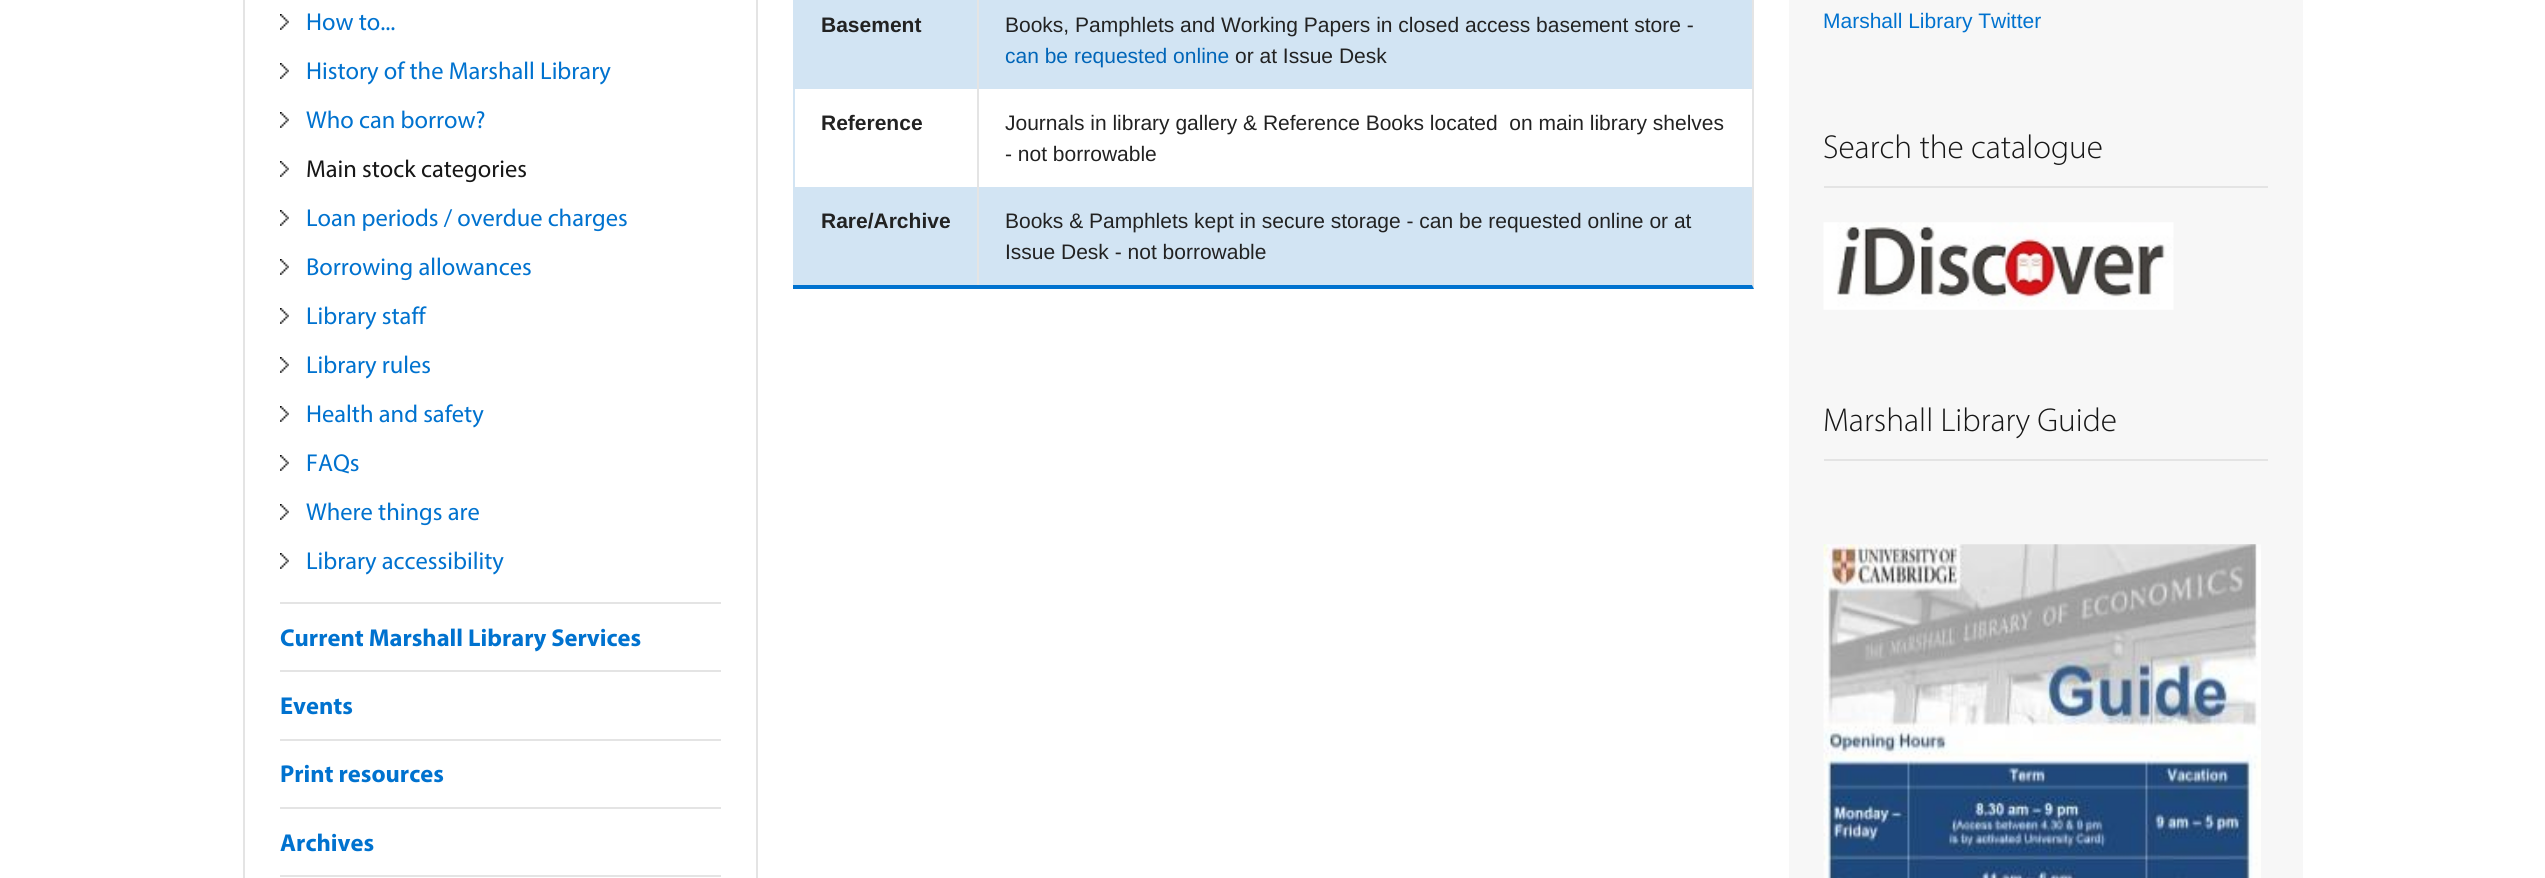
import math
import cairo

surface = cairo.ImageSurface(cairo.FORMAT_RGB24, 2545, 878)
ctx = cairo.Context(surface)
options = cairo.FontOptions()
options.set_hint_metrics(cairo.HINT_METRICS_OFF)
options.set_hint_style(cairo.HINT_STYLE_NONE)
ctx.set_font_options(options)
ctx.set_miter_limit(4)


def picture(path, x, y, w, h):
    ctx.save()
    ctx.set_source_surface(cairo.ImageSurface.create_from_png(path), x, y)
    ctx.rectangle(x, y, w, h)
    ctx.fill()
    ctx.restore()


ctx.set_source_rgb(1, 1, 1)
ctx.paint()
ctx.set_source_rgb(0.894, 0.894, 0.894)
ctx.rectangle(756, 0, 2, 878)
ctx.fill()
ctx.rectangle(243, 0, 2, 878)
ctx.fill()
ctx.rectangle(280, 602, 441, 2)
ctx.fill()
picture("img1.png", 280, 14, 9, 16)
ctx.select_font_face("Myriad")
ctx.set_font_size(24.5)
ctx.set_source_rgb(0, 0.447, 0.812)
ctx.move_to(306, 30)
ctx.show_text("How to...")
picture("img1.png", 280, 63, 9, 16)
ctx.move_to(306, 79)
ctx.show_text("History of the Marshall Library")
picture("img1.png", 280, 112, 9, 16)
ctx.move_to(306, 128)
ctx.show_text("Who can borrow?")
picture("img1.png", 280, 161, 9, 16)
ctx.set_source_rgb(0.09, 0.09, 0.09)
ctx.move_to(306, 177)
ctx.show_text("Main stock categories")
picture("img1.png", 280, 210, 9, 16)
ctx.set_source_rgb(0, 0.447, 0.812)
ctx.move_to(306, 226)
ctx.show_text("Loan periods / overdue charges")
picture("img1.png", 280, 259, 9, 16)
ctx.move_to(306, 275)
ctx.show_text("Borrowing allowances")
picture("img1.png", 280, 308, 9, 16)
ctx.move_to(306, 324)
ctx.show_text("Library staff")
picture("img1.png", 280, 357, 9, 16)
ctx.move_to(306, 373)
ctx.show_text("Library rules")
picture("img1.png", 280, 406, 9, 16)
ctx.move_to(306, 422)
ctx.show_text("Health and safety")
picture("img1.png", 280, 455, 9, 16)
ctx.move_to(306, 471)
ctx.show_text("FAQs")
picture("img1.png", 280, 504, 9, 16)
ctx.move_to(306, 520)
ctx.show_text("Where things are")
picture("img1.png", 280, 553, 9, 16)
ctx.move_to(306, 569)
ctx.show_text("Library accessibility")
ctx.set_source_rgb(0.894, 0.894, 0.894)
ctx.rectangle(280, 670, 441, 2)
ctx.fill()
ctx.select_font_face("Myriad", cairo.FONT_SLANT_NORMAL, cairo.FONT_WEIGHT_BOLD)
ctx.set_source_rgb(0, 0.447, 0.812)
ctx.move_to(280, 646)
ctx.show_text("Current Marshall Library Services")
ctx.set_source_rgb(0.894, 0.894, 0.894)
ctx.rectangle(280, 739, 441, 2)
ctx.fill()
ctx.set_source_rgb(0, 0.447, 0.812)
ctx.move_to(280, 714)
ctx.show_text("Events")
ctx.set_source_rgb(0.894, 0.894, 0.894)
ctx.rectangle(280, 807, 441, 2)
ctx.fill()
ctx.set_source_rgb(0, 0.447, 0.812)
ctx.move_to(280, 782)
ctx.show_text("Print resources")
ctx.set_source_rgb(0.894, 0.894, 0.894)
ctx.rectangle(280, 875, 441, 2)
ctx.fill()
ctx.set_source_rgb(0, 0.447, 0.812)
ctx.move_to(280, 851)
ctx.show_text("Archives")
ctx.set_source_rgb(0.894, 0.894, 0.894)
ctx.new_path()
ctx.move_to(1754, -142)
ctx.line_to(1754, 289)
ctx.line_to(1752, 285)
ctx.line_to(1752, -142)
ctx.close_path()
ctx.fill()
ctx.set_source_rgb(0, 0.447, 0.812)
ctx.new_path()
ctx.move_to(1754, 289)
ctx.line_to(793, 289)
ctx.line_to(793, 285)
ctx.line_to(1752, 285)
ctx.close_path()
ctx.fill()
ctx.set_source_rgb(0.824, 0.894, 0.953)
ctx.rectangle(793, 0, 184, 89)
ctx.fill()
ctx.select_font_face("Liberation Sans", cairo.FONT_SLANT_NORMAL, cairo.FONT_WEIGHT_BOLD)
ctx.set_font_size(21)
ctx.set_source_rgb(0.133, 0.133, 0.133)
ctx.move_to(821, 32)
ctx.show_text("Basement")
ctx.set_source_rgb(0.824, 0.894, 0.953)
ctx.rectangle(979, 0, 773, 89)
ctx.fill()
ctx.set_source_rgb(0.894, 0.894, 0.894)
ctx.rectangle(977, 0, 2, 285)
ctx.fill()
ctx.select_font_face("Liberation Sans")
ctx.set_source_rgb(0.133, 0.133, 0.133)
ctx.move_to(1005, 32)
ctx.show_text("Books, Pamphlets and Working Papers in closed access basement store -")
ctx.set_source_rgb(0, 0.396, 0.722)
ctx.move_to(1005, 63)
ctx.show_text("can be requested online")
ctx.set_source_rgb(0.133, 0.133, 0.133)
ctx.move_to(1235, 63)
ctx.show_text("or at Issue Desk")
ctx.set_source_rgb(0.824, 0.894, 0.953)
ctx.rectangle(793, 89, 2, 98)
ctx.fill()
ctx.select_font_face("Liberation Sans", cairo.FONT_SLANT_NORMAL, cairo.FONT_WEIGHT_BOLD)
ctx.set_source_rgb(0.133, 0.133, 0.133)
ctx.move_to(821, 130)
ctx.show_text("Reference")
ctx.select_font_face("Liberation Sans")
ctx.move_to(1005, 130)
ctx.show_text("Journals in library gallery & Reference Books located  on main library shelves")
ctx.move_to(1005, 161)
ctx.show_text("- not borrowable")
ctx.set_source_rgb(0.824, 0.894, 0.953)
ctx.rectangle(793, 187, 184, 98)
ctx.fill()
ctx.select_font_face("Liberation Sans", cairo.FONT_SLANT_NORMAL, cairo.FONT_WEIGHT_BOLD)
ctx.set_source_rgb(0.133, 0.133, 0.133)
ctx.move_to(821, 228)
ctx.show_text("Rare/Archive")
ctx.set_source_rgb(0.824, 0.894, 0.953)
ctx.rectangle(979, 187, 773, 98)
ctx.fill()
ctx.select_font_face("Liberation Sans")
ctx.set_source_rgb(0.133, 0.133, 0.133)
ctx.move_to(1005, 228)
ctx.show_text("Books & Pamphlets kept in secure storage - can be requested online or at")
ctx.move_to(1005, 259)
ctx.show_text("Issue Desk - not borrowable")
ctx.set_source_rgb(0.965, 0.965, 0.965)
ctx.rectangle(1789, 0, 514, 878)
ctx.fill()
ctx.set_source_rgb(0, 0.447, 0.812)
ctx.move_to(1823, 28)
ctx.show_text("Marshall Library Twitter")
ctx.set_source_rgb(0.894, 0.894, 0.894)
ctx.rectangle(1824, 186, 444, 2)
ctx.fill()
ctx.select_font_face("Myriad Light")
ctx.set_font_size(33.25)
ctx.set_source_rgb(0.09, 0.09, 0.09)
ctx.move_to(1823, 158)
ctx.show_text("Search the catalogue")
picture("img2.png", 1823, 222, 351, 88)
ctx.set_source_rgb(0.894, 0.894, 0.894)
ctx.rectangle(1824, 459, 444, 2)
ctx.fill()
ctx.set_source_rgb(0.09, 0.09, 0.09)
ctx.move_to(1823, 431)
ctx.show_text("Marshall Library Guide")
picture("img3.png", 1823, 544, 438, 334)
surface.write_to_png("page.png")
